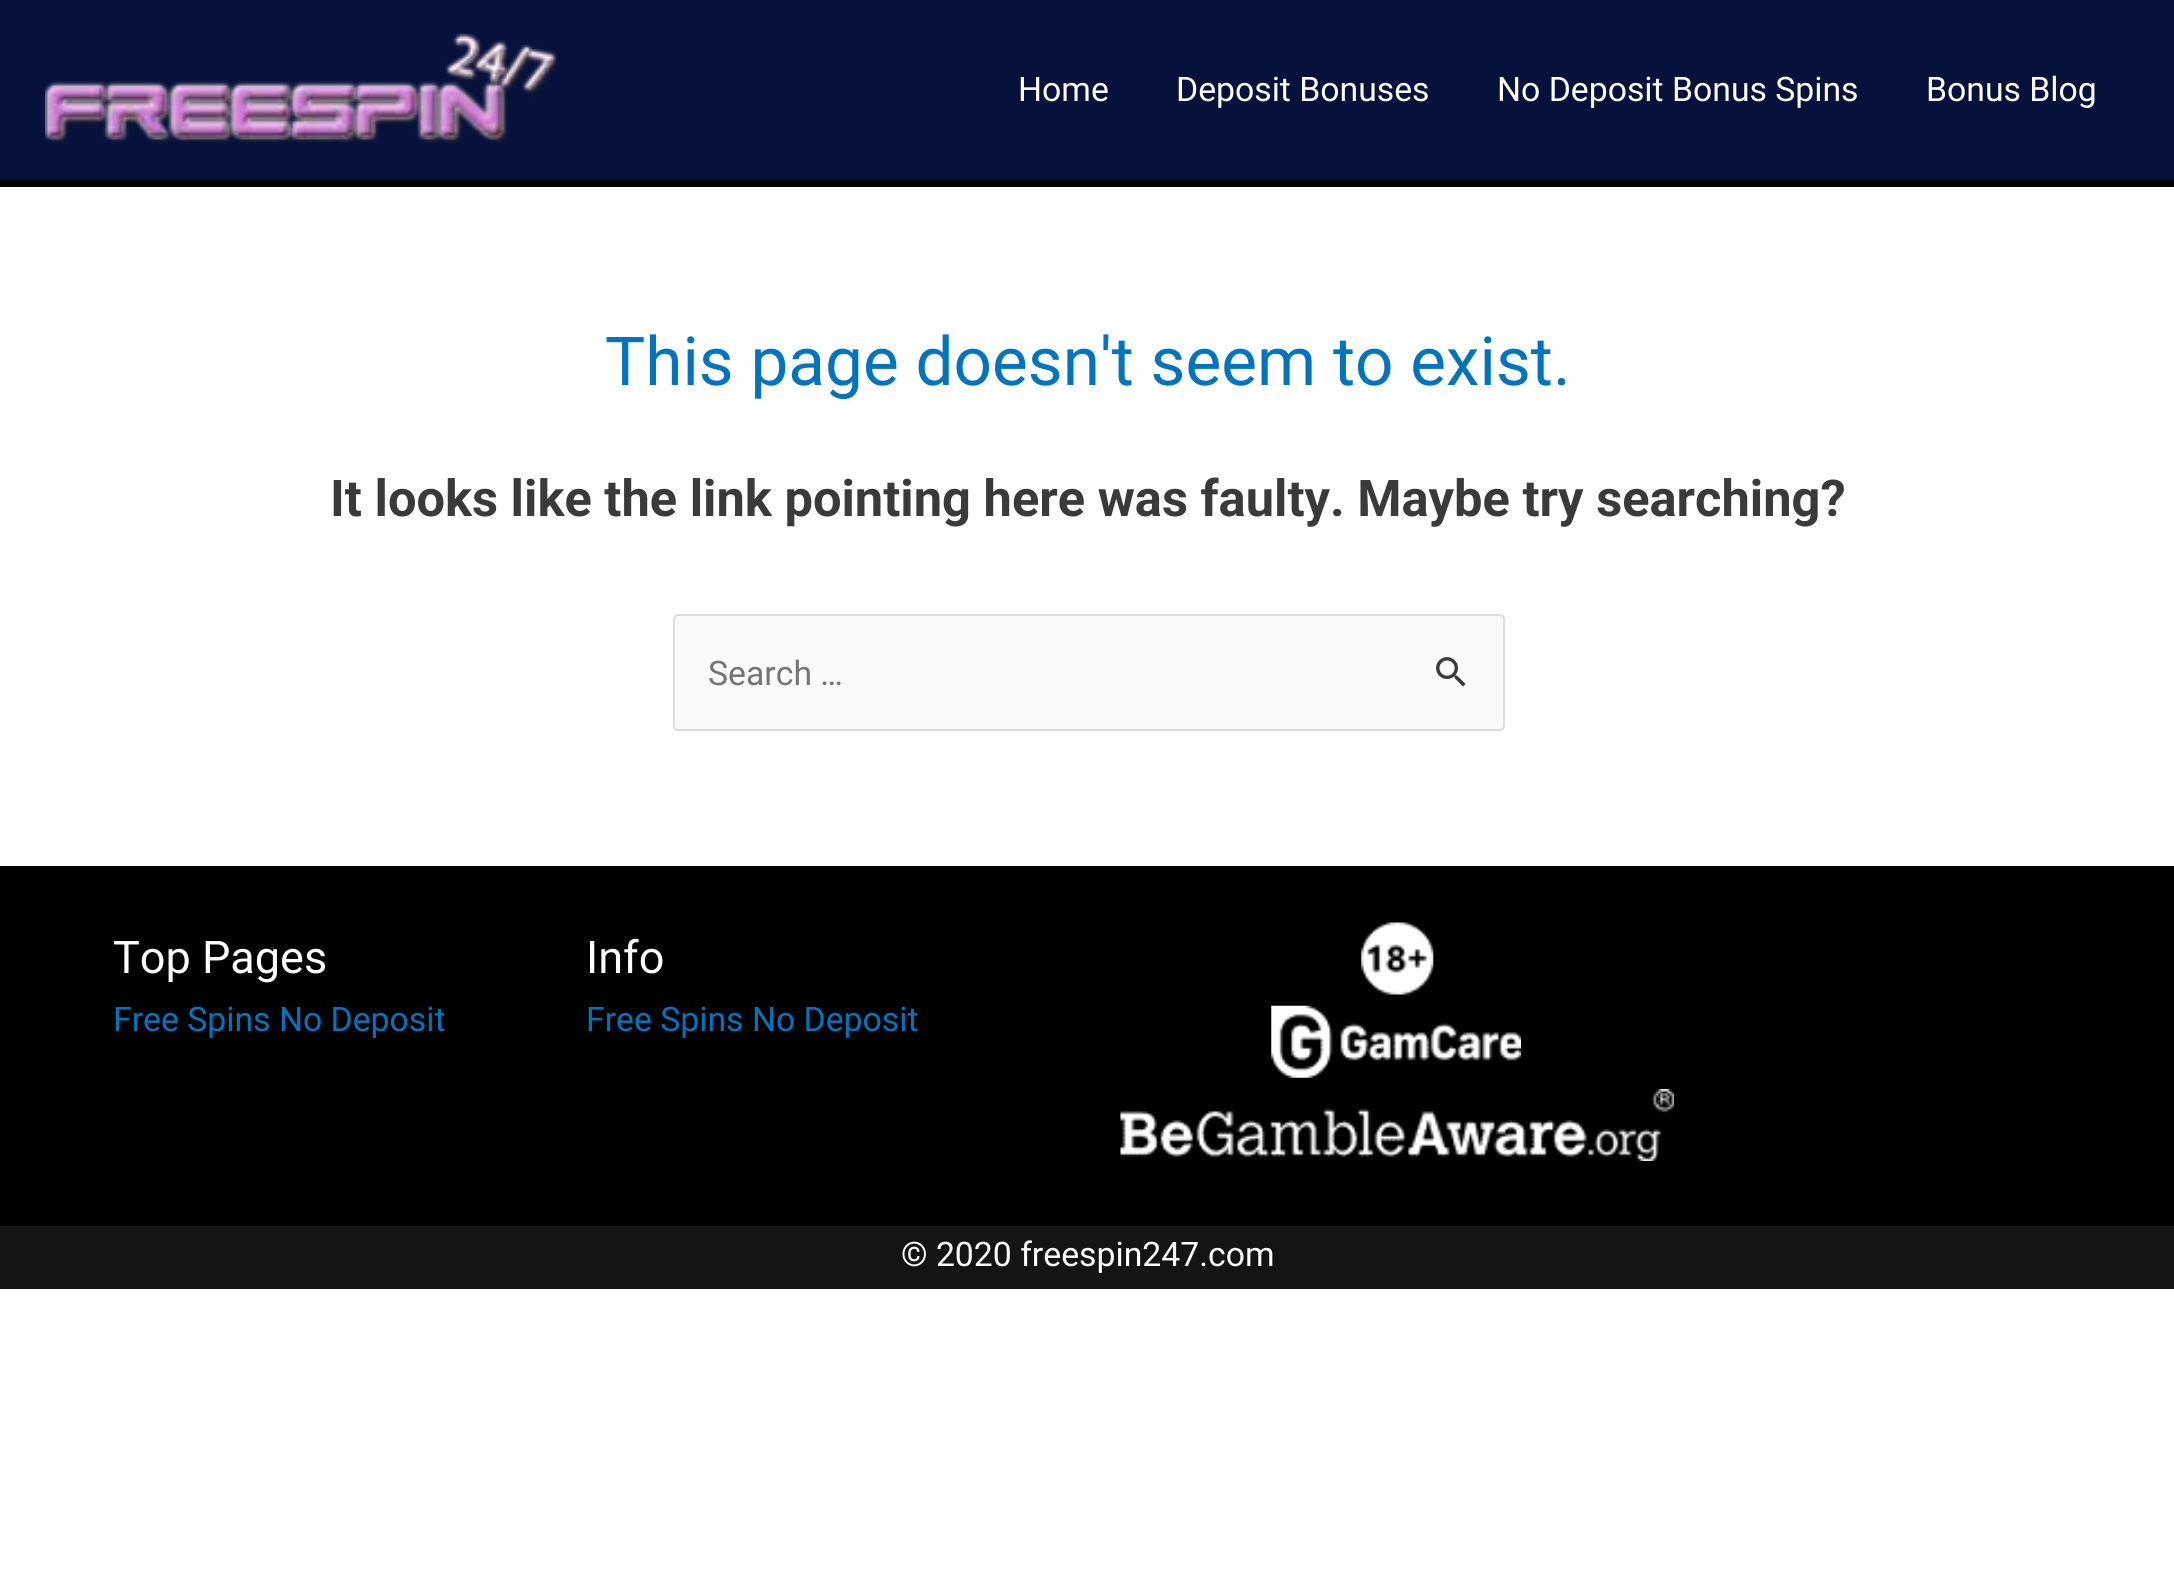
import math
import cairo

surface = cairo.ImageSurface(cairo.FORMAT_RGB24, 2174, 1595)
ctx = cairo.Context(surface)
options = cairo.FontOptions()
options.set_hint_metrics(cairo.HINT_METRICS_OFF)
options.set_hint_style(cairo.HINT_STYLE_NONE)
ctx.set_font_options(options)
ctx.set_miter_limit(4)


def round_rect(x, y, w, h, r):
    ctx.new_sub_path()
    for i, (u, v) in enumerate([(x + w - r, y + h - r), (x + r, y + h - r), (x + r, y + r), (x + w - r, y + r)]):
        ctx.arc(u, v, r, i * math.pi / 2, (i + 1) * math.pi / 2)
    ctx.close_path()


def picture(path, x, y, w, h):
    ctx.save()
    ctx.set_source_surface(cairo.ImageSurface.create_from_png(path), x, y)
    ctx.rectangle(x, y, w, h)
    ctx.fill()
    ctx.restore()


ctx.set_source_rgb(1, 1, 1)
ctx.paint()
ctx.set_source_rgb(0.031, 0.071, 0.235)
ctx.rectangle(0, 0, 2174, 180)
ctx.fill()
ctx.set_source_rgb(0, 0, 0)
ctx.rectangle(0, 180, 2174, 7)
ctx.fill()
picture("img1.png", 45, 33, 513, 111)
ctx.select_font_face("Roboto")
ctx.set_font_size(33.75)
ctx.set_source_rgb(1, 1, 1)
ctx.move_to(1018, 101)
ctx.show_text("Home")
ctx.move_to(1176, 101)
ctx.show_text("Deposit Bonuses")
ctx.move_to(1497, 101)
ctx.show_text("No Deposit Bonus Spins")
ctx.move_to(1926, 101)
ctx.show_text("Bonus Blog")
ctx.set_font_size(67.5)
ctx.set_source_rgb(0.008, 0.455, 0.745)
ctx.move_to(605, 385)
ctx.show_text("This page doesn't seem to exist.")
ctx.select_font_face("Roboto", cairo.FONT_SLANT_NORMAL, cairo.FONT_WEIGHT_BOLD)
ctx.set_font_size(50.6)
ctx.set_source_rgb(0.227, 0.227, 0.227)
ctx.move_to(330, 516)
ctx.show_text("It looks like the link pointing here was faulty. Maybe try searching?")
ctx.set_source_rgb(0.98, 0.98, 0.98)
round_rect(674, 615, 830, 115, 4)
ctx.fill_preserve()
ctx.set_source_rgb(0.867, 0.867, 0.867)
ctx.stroke()
ctx.select_font_face("Roboto")
ctx.set_font_size(33.75)
ctx.set_source_rgb(0.459, 0.459, 0.459)
ctx.move_to(708, 685)
ctx.show_text("Search …")
picture("img2.png", 1436, 657, 30, 30)
ctx.set_source_rgb(0, 0, 0)
ctx.rectangle(0, 866, 2174, 360)
ctx.fill()
ctx.set_font_size(45)
ctx.set_source_rgb(1, 1, 1)
ctx.move_to(113, 973)
ctx.show_text("Top Pages")
ctx.set_font_size(33.75)
ctx.set_source_rgb(0.008, 0.455, 0.745)
ctx.move_to(113, 1031)
ctx.show_text("Free Spins No Deposit")
ctx.set_font_size(45)
ctx.set_source_rgb(1, 1, 1)
ctx.move_to(586, 973)
ctx.show_text("Info")
ctx.set_font_size(33.75)
ctx.set_source_rgb(0.008, 0.455, 0.745)
ctx.move_to(586, 1031)
ctx.show_text("Free Spins No Deposit")
picture("img3.png", 1361, 922, 73, 73)
picture("img4.png", 1271, 1005, 250, 73)
picture("img5.png", 1120, 1089, 554, 72)
ctx.set_source_rgb(0.086, 0.078, 0.078)
ctx.rectangle(0, 1226, 2174, 63)
ctx.fill()
ctx.set_source_rgb(1, 1, 1)
ctx.move_to(901, 1266)
ctx.show_text("© 2020 freespin247.com")
surface.write_to_png("page.png")
